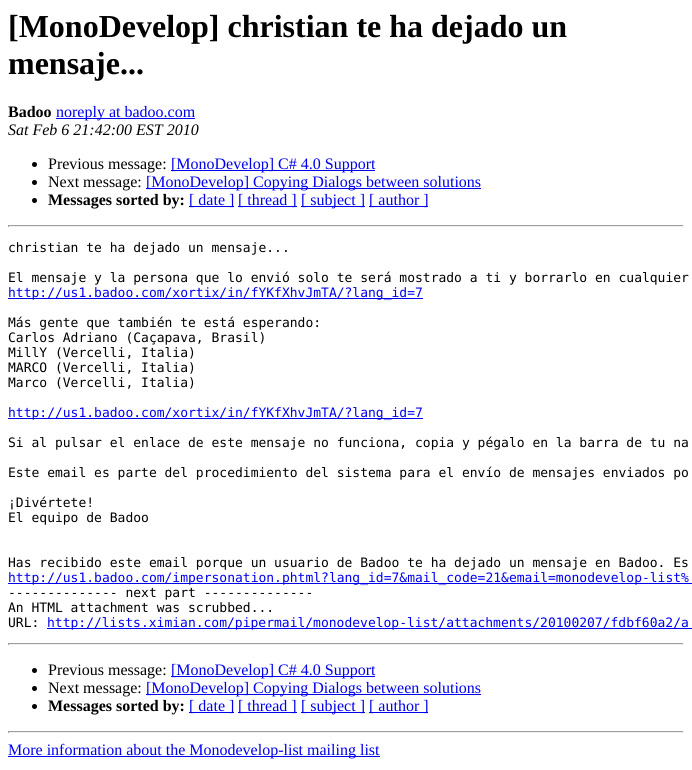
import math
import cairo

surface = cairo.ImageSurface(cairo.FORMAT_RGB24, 692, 770)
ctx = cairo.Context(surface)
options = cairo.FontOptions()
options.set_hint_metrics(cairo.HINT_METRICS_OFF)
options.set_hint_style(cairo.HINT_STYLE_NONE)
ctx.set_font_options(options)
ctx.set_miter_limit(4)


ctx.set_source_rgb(1, 1, 1)
ctx.paint()
ctx.select_font_face("Liberation Serif", cairo.FONT_SLANT_NORMAL, cairo.FONT_WEIGHT_BOLD)
ctx.set_font_size(32)
ctx.set_source_rgb(0, 0, 0)
ctx.move_to(8, 37)
ctx.show_text("[MonoDevelop] christian te ha dejado un")
ctx.move_to(8, 74)
ctx.show_text("mensaje...")
ctx.set_font_size(16)
ctx.move_to(8, 117)
ctx.show_text("Badoo")
ctx.set_source_rgb(0, 0, 0.933)
ctx.rectangle(56, 118, 139, 1)
ctx.fill()
ctx.select_font_face("Liberation Serif")
ctx.move_to(56, 117)
ctx.show_text("noreply at badoo.com")
ctx.select_font_face("Liberation Serif", cairo.FONT_SLANT_ITALIC)
ctx.set_source_rgb(0, 0, 0)
ctx.move_to(8, 135)
ctx.show_text("Sat Feb 6 21:42:00 EST 2010")
ctx.new_path()
ctx.arc(34.5, 164.5, 2.5, 0, 2 * math.pi)
ctx.fill()
ctx.select_font_face("Liberation Serif")
ctx.move_to(48, 169)
ctx.show_text("Previous message:")
ctx.set_source_rgb(0, 0, 0.933)
ctx.rectangle(171, 170, 204, 1)
ctx.fill()
ctx.move_to(171, 169)
ctx.show_text("[MonoDevelop] C# 4.0 Support")
ctx.set_source_rgb(0, 0, 0)
ctx.new_path()
ctx.arc(34.5, 182.5, 2.5, 0, 2 * math.pi)
ctx.fill()
ctx.move_to(48, 187)
ctx.show_text("Next message:")
ctx.set_source_rgb(0, 0, 0.933)
ctx.rectangle(146, 188, 335, 1)
ctx.fill()
ctx.move_to(146, 187)
ctx.show_text("[MonoDevelop] Copying Dialogs between solutions")
ctx.set_source_rgb(0, 0, 0)
ctx.new_path()
ctx.arc(34.5, 200.5, 2.5, 0, 2 * math.pi)
ctx.fill()
ctx.select_font_face("Liberation Serif", cairo.FONT_SLANT_NORMAL, cairo.FONT_WEIGHT_BOLD)
ctx.move_to(48, 205)
ctx.show_text("Messages sorted by:")
ctx.set_source_rgb(0, 0, 0.933)
ctx.rectangle(189, 206, 45, 1)
ctx.fill()
ctx.select_font_face("Liberation Serif")
ctx.move_to(189, 205)
ctx.show_text("[ date ]")
ctx.rectangle(238, 206, 59, 1)
ctx.fill()
ctx.move_to(238, 205)
ctx.show_text("[ thread ]")
ctx.rectangle(301, 206, 64, 1)
ctx.fill()
ctx.move_to(301, 205)
ctx.show_text("[ subject ]")
ctx.rectangle(369, 206, 59, 1)
ctx.fill()
ctx.move_to(369, 205)
ctx.show_text("[ author ]")
ctx.set_source_rgb(0.624, 0.624, 0.624)
ctx.rectangle(8, 225, 676, 1)
ctx.fill()
ctx.set_source_rgb(0.933, 0.933, 0.933)
ctx.rectangle(683, 225, 1, 2)
ctx.fill()
ctx.rectangle(8, 226, 676, 1)
ctx.fill()
ctx.set_source_rgb(0.624, 0.624, 0.624)
ctx.rectangle(8, 225, 1, 2)
ctx.fill()
ctx.select_font_face("DejaVu Sans Mono")
ctx.set_font_size(13)
ctx.set_source_rgb(0, 0, 0)
ctx.move_to(8, 252)
ctx.show_text("christian te ha dejado un mensaje...")
ctx.move_to(8, 282)
ctx.show_text("El mensaje y la persona que lo envió solo te será mostrado a ti y borrarlo en cualquier")
ctx.set_source_rgb(0, 0, 0.933)
ctx.rectangle(8, 298, 415, 1)
ctx.fill()
ctx.move_to(8, 297)
ctx.show_text("http://us1.badoo.com/xortix/in/fYKfXhvJmTA/?lang_id=7")
ctx.set_source_rgb(0, 0, 0)
ctx.move_to(8, 327)
ctx.show_text("Más gente que también te está esperando:")
ctx.move_to(8, 342)
ctx.show_text("Carlos Adriano (Caçapava, Brasil)")
ctx.move_to(8, 357)
ctx.show_text("MillY (Vercelli, Italia)")
ctx.move_to(8, 372)
ctx.show_text("MARCO (Vercelli, Italia)")
ctx.move_to(8, 387)
ctx.show_text("Marco (Vercelli, Italia)")
ctx.set_source_rgb(0, 0, 0.933)
ctx.rectangle(8, 418, 415, 1)
ctx.fill()
ctx.move_to(8, 417)
ctx.show_text("http://us1.badoo.com/xortix/in/fYKfXhvJmTA/?lang_id=7")
ctx.set_source_rgb(0, 0, 0)
ctx.move_to(8, 447)
ctx.show_text("Si al pulsar el enlace de este mensaje no funciona, copia y pégalo en la barra de tu na")
ctx.move_to(8, 477)
ctx.show_text("Este email es parte del procedimiento del sistema para el envío de mensajes enviados po")
ctx.move_to(8, 507)
ctx.show_text("¡Divértete!")
ctx.move_to(8, 522)
ctx.show_text("El equipo de Badoo")
ctx.move_to(8, 567)
ctx.show_text("Has recibido este email porque un usuario de Badoo te ha dejado un mensaje en Badoo. Es")
ctx.set_source_rgb(0, 0, 0.933)
ctx.rectangle(8, 583, 684, 1)
ctx.fill()
ctx.move_to(8, 582)
ctx.show_text("http://us1.badoo.com/impersonation.phtml?lang_id=7&mail_code=21&email=monodevelop-list%")
ctx.set_source_rgb(0, 0, 0)
ctx.move_to(8, 597)
ctx.show_text("-------------- next part --------------")
ctx.move_to(8, 612)
ctx.show_text("An HTML attachment was scrubbed...")
ctx.move_to(8, 627)
ctx.show_text("URL:")
ctx.set_source_rgb(0, 0, 0.933)
ctx.rectangle(47, 628, 645, 1)
ctx.fill()
ctx.move_to(47, 627)
ctx.show_text("http://lists.ximian.com/pipermail/monodevelop-list/attachments/20100207/fdbf60a2/a")
ctx.set_source_rgb(0.624, 0.624, 0.624)
ctx.rectangle(8, 643, 676, 1)
ctx.fill()
ctx.set_source_rgb(0.933, 0.933, 0.933)
ctx.rectangle(683, 643, 1, 2)
ctx.fill()
ctx.rectangle(8, 644, 676, 1)
ctx.fill()
ctx.set_source_rgb(0.624, 0.624, 0.624)
ctx.rectangle(8, 643, 1, 2)
ctx.fill()
ctx.set_source_rgb(0, 0, 0)
ctx.arc(34.5, 670.5, 2.5, 0, 2 * math.pi)
ctx.fill()
ctx.select_font_face("Liberation Serif")
ctx.set_font_size(16)
ctx.move_to(48, 675)
ctx.show_text("Previous message:")
ctx.set_source_rgb(0, 0, 0.933)
ctx.rectangle(171, 676, 204, 1)
ctx.fill()
ctx.move_to(171, 675)
ctx.show_text("[MonoDevelop] C# 4.0 Support")
ctx.set_source_rgb(0, 0, 0)
ctx.new_path()
ctx.arc(34.5, 688.5, 2.5, 0, 2 * math.pi)
ctx.fill()
ctx.move_to(48, 693)
ctx.show_text("Next message:")
ctx.set_source_rgb(0, 0, 0.933)
ctx.rectangle(146, 694, 335, 1)
ctx.fill()
ctx.move_to(146, 693)
ctx.show_text("[MonoDevelop] Copying Dialogs between solutions")
ctx.set_source_rgb(0, 0, 0)
ctx.new_path()
ctx.arc(34.5, 706.5, 2.5, 0, 2 * math.pi)
ctx.fill()
ctx.select_font_face("Liberation Serif", cairo.FONT_SLANT_NORMAL, cairo.FONT_WEIGHT_BOLD)
ctx.move_to(48, 711)
ctx.show_text("Messages sorted by:")
ctx.set_source_rgb(0, 0, 0.933)
ctx.rectangle(189, 712, 45, 1)
ctx.fill()
ctx.select_font_face("Liberation Serif")
ctx.move_to(189, 711)
ctx.show_text("[ date ]")
ctx.rectangle(238, 712, 59, 1)
ctx.fill()
ctx.move_to(238, 711)
ctx.show_text("[ thread ]")
ctx.rectangle(301, 712, 64, 1)
ctx.fill()
ctx.move_to(301, 711)
ctx.show_text("[ subject ]")
ctx.rectangle(369, 712, 59, 1)
ctx.fill()
ctx.move_to(369, 711)
ctx.show_text("[ author ]")
ctx.set_source_rgb(0.624, 0.624, 0.624)
ctx.rectangle(8, 731, 676, 1)
ctx.fill()
ctx.set_source_rgb(0.933, 0.933, 0.933)
ctx.rectangle(683, 731, 1, 2)
ctx.fill()
ctx.rectangle(8, 732, 676, 1)
ctx.fill()
ctx.set_source_rgb(0.624, 0.624, 0.624)
ctx.rectangle(8, 731, 1, 2)
ctx.fill()
ctx.set_source_rgb(0, 0, 0.933)
ctx.rectangle(8, 756, 372, 1)
ctx.fill()
ctx.move_to(8, 755)
ctx.show_text("More information about the Monodevelop-list mailing list")
surface.write_to_png("page.png")
